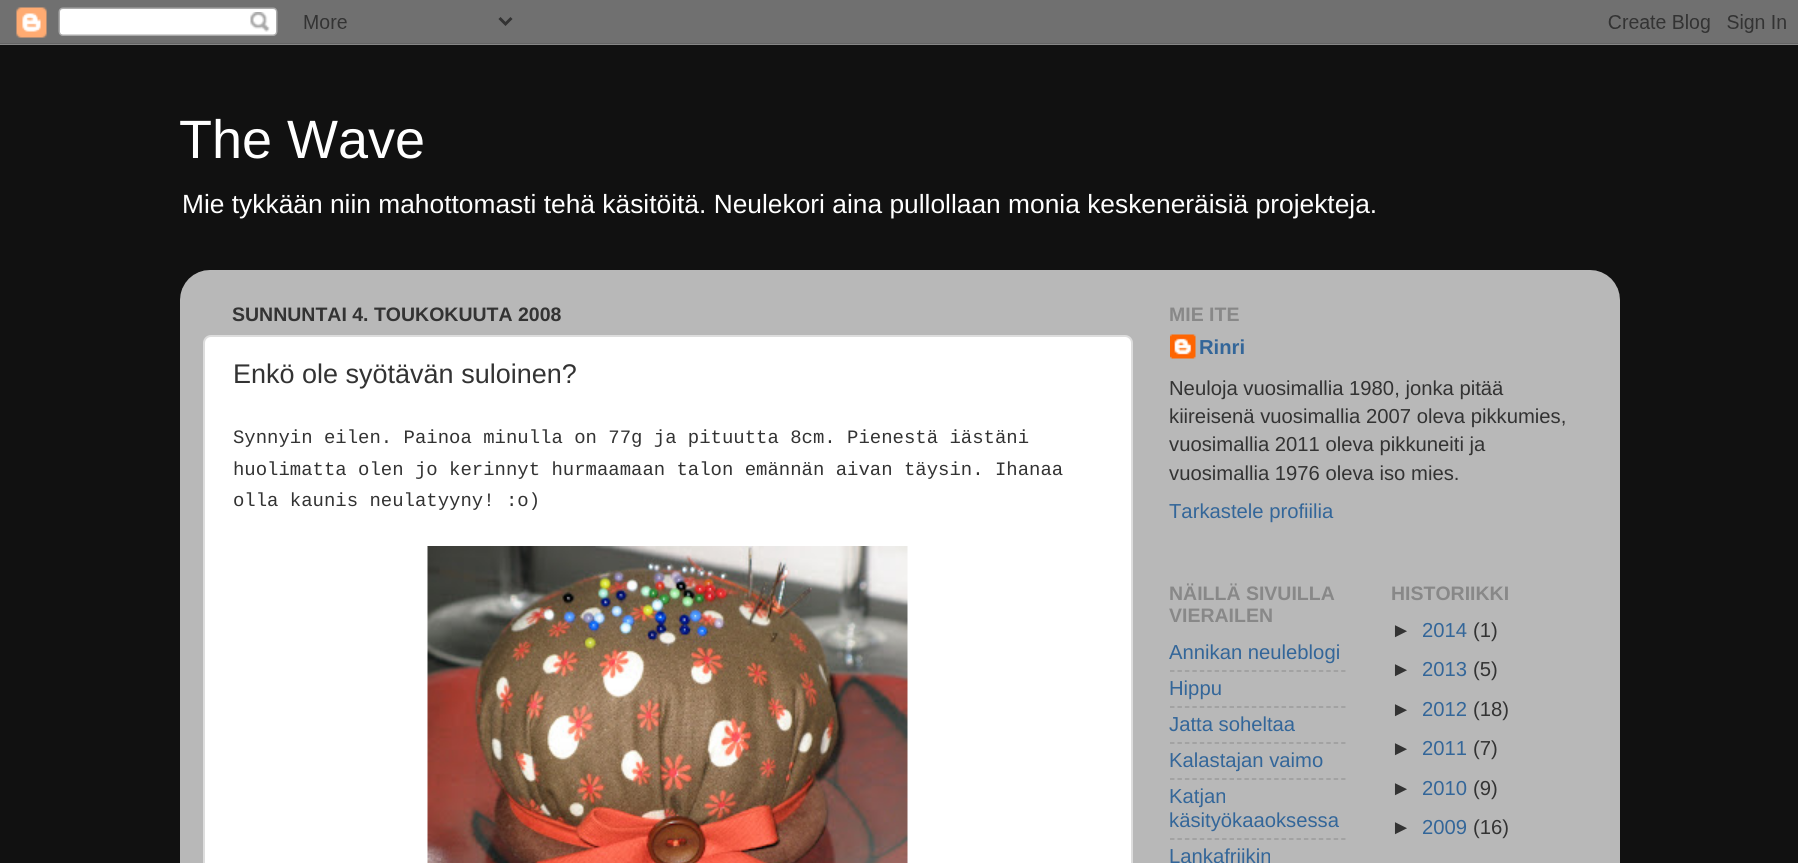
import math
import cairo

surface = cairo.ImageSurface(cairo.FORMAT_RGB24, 1798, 863)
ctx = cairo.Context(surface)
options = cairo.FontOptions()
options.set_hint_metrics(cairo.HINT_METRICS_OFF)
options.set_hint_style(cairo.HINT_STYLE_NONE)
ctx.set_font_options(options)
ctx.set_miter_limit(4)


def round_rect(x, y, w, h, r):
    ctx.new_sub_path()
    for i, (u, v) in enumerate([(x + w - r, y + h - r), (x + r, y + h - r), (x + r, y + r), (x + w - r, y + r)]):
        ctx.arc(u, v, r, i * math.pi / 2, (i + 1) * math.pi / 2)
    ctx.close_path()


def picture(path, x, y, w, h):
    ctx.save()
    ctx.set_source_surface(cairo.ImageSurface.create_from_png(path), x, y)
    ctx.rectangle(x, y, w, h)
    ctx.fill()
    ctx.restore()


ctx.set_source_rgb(0.067, 0.067, 0.067)
ctx.paint()
picture("img1.png", 0, 0, 1798, 45)
ctx.select_font_face("Liberation Sans")
ctx.set_font_size(54)
ctx.set_source_rgb(1, 1, 1)
ctx.move_to(179, 158)
ctx.show_text("The Wave")
ctx.set_font_size(26.35)
ctx.move_to(182, 213)
ctx.show_text("Mie tykkään niin mahottomasti tehä käsitöitä. Neulekori aina pullollaan monia keskeneräisiä projekteja.")
picture("img2.png", 180, 270, 1440, 593)
ctx.select_font_face("Liberation Sans", cairo.FONT_SLANT_NORMAL, cairo.FONT_WEIGHT_BOLD)
ctx.set_font_size(19.5)
ctx.set_source_rgb(0.2, 0.2, 0.2)
ctx.move_to(232, 321)
ctx.show_text("SUNNUNTAI 4. TOUKOKUUTA 2008")
ctx.set_source_rgb(1, 1, 1)
round_rect(204, 336, 928, 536, 7)
ctx.fill_preserve()
ctx.set_source_rgb(0.867, 0.867, 0.867)
ctx.stroke()
ctx.select_font_face("Liberation Sans")
ctx.set_font_size(27)
ctx.set_source_rgb(0.2, 0.2, 0.2)
ctx.move_to(233, 383)
ctx.show_text("Enkö ole syötävän suloinen?")
ctx.select_font_face("Liberation Mono")
ctx.set_font_size(18.95)
ctx.move_to(233, 443)
ctx.show_text("Synnyin eilen. Painoa minulla on 77g ja pituutta 8cm. Pienestä iästäni")
ctx.move_to(233, 475)
ctx.show_text("huolimatta olen jo kerinnyt hurmaamaan talon emännän aivan täysin. Ihanaa")
ctx.move_to(233, 506)
ctx.show_text("olla kaunis neulatyyny! :o)")
picture("img3.png", 427, 546, 481, 317)
ctx.select_font_face("Liberation Sans", cairo.FONT_SLANT_NORMAL, cairo.FONT_WEIGHT_BOLD)
ctx.set_font_size(19.5)
ctx.set_source_rgb(0.533, 0.533, 0.533)
ctx.move_to(1169, 321)
ctx.show_text("MIE ITE")
picture("img4.png", 1170, 334, 26, 25)
ctx.set_font_size(20.25)
ctx.set_source_rgb(0.2, 0.4, 0.6)
ctx.move_to(1199, 354)
ctx.show_text("Rinri")
ctx.select_font_face("Liberation Sans")
ctx.set_source_rgb(0.2, 0.2, 0.2)
ctx.move_to(1169, 395)
ctx.show_text("Neuloja vuosimallia 1980, jonka pitää")
ctx.move_to(1169, 423)
ctx.show_text("kiireisenä vuosimallia 2007 oleva pikkumies,")
ctx.move_to(1169, 451)
ctx.show_text("vuosimallia 2011 oleva pikkuneiti ja")
ctx.move_to(1169, 480)
ctx.show_text("vuosimallia 1976 oleva iso mies.")
ctx.set_source_rgb(0.2, 0.4, 0.6)
ctx.move_to(1169, 518)
ctx.show_text("Tarkastele profiilia")
ctx.select_font_face("Liberation Sans", cairo.FONT_SLANT_NORMAL, cairo.FONT_WEIGHT_BOLD)
ctx.set_font_size(19.5)
ctx.set_source_rgb(0.533, 0.533, 0.533)
ctx.move_to(1169, 600)
ctx.show_text("NÄILLÄ SIVUILLA")
ctx.move_to(1169, 622)
ctx.show_text("VIERAILEN")
ctx.select_font_face("Liberation Sans")
ctx.set_font_size(20.25)
ctx.set_source_rgb(0.2, 0.4, 0.6)
ctx.move_to(1169, 659)
ctx.show_text("Annikan neuleblogi")
ctx.new_path()
ctx.move_to(1170, 671)
ctx.line_to(1345.5, 671)
ctx.set_source_rgb(0.612, 0.612, 0.612)
ctx.set_line_width(1.5)
ctx.set_dash([4.5, 2.94])
ctx.stroke()
ctx.set_source_rgb(0.2, 0.4, 0.6)
ctx.move_to(1169, 695)
ctx.show_text("Hippu")
ctx.new_path()
ctx.move_to(1170, 707)
ctx.line_to(1345.5, 707)
ctx.set_source_rgb(0.612, 0.612, 0.612)
ctx.stroke()
ctx.set_source_rgb(0.2, 0.4, 0.6)
ctx.move_to(1169, 731)
ctx.show_text("Jatta soheltaa")
ctx.new_path()
ctx.move_to(1170, 743)
ctx.line_to(1345.5, 743)
ctx.set_source_rgb(0.612, 0.612, 0.612)
ctx.stroke()
ctx.set_source_rgb(0.2, 0.4, 0.6)
ctx.move_to(1169, 767)
ctx.show_text("Kalastajan vaimo")
ctx.new_path()
ctx.move_to(1170, 779)
ctx.line_to(1345.5, 779)
ctx.set_source_rgb(0.612, 0.612, 0.612)
ctx.stroke()
ctx.set_source_rgb(0.2, 0.4, 0.6)
ctx.move_to(1169, 803)
ctx.show_text("Katjan")
ctx.move_to(1169, 827)
ctx.show_text("käsityökaaoksessa")
ctx.new_path()
ctx.move_to(1170, 839)
ctx.line_to(1345.5, 839)
ctx.set_source_rgb(0.612, 0.612, 0.612)
ctx.stroke()
ctx.set_source_rgb(0.2, 0.4, 0.6)
ctx.move_to(1169, 863)
ctx.show_text("Lankafriikin")
ctx.select_font_face("Liberation Sans", cairo.FONT_SLANT_NORMAL, cairo.FONT_WEIGHT_BOLD)
ctx.set_font_size(19.5)
ctx.set_source_rgb(0.533, 0.533, 0.533)
ctx.move_to(1391, 600)
ctx.show_text("HISTORIIKKI")
ctx.select_font_face("Liberation Sans")
ctx.set_font_size(20.25)
ctx.set_source_rgb(0.2, 0.2, 0.2)
ctx.move_to(1391, 637)
ctx.show_text("►")
ctx.set_source_rgb(0.2, 0.4, 0.6)
ctx.move_to(1422, 637)
ctx.show_text("2014")
ctx.set_source_rgb(0.2, 0.2, 0.2)
ctx.move_to(1473, 637)
ctx.show_text("(1)")
ctx.move_to(1391, 676)
ctx.show_text("►")
ctx.set_source_rgb(0.2, 0.4, 0.6)
ctx.move_to(1422, 676)
ctx.show_text("2013")
ctx.set_source_rgb(0.2, 0.2, 0.2)
ctx.move_to(1473, 676)
ctx.show_text("(5)")
ctx.move_to(1391, 716)
ctx.show_text("►")
ctx.set_source_rgb(0.2, 0.4, 0.6)
ctx.move_to(1422, 716)
ctx.show_text("2012")
ctx.set_source_rgb(0.2, 0.2, 0.2)
ctx.move_to(1473, 716)
ctx.show_text("(18)")
ctx.move_to(1391, 755)
ctx.show_text("►")
ctx.set_source_rgb(0.2, 0.4, 0.6)
ctx.move_to(1422, 755)
ctx.show_text("2011")
ctx.set_source_rgb(0.2, 0.2, 0.2)
ctx.move_to(1473, 755)
ctx.show_text("(7)")
ctx.move_to(1391, 795)
ctx.show_text("►")
ctx.set_source_rgb(0.2, 0.4, 0.6)
ctx.move_to(1422, 795)
ctx.show_text("2010")
ctx.set_source_rgb(0.2, 0.2, 0.2)
ctx.move_to(1473, 795)
ctx.show_text("(9)")
ctx.move_to(1391, 834)
ctx.show_text("►")
ctx.set_source_rgb(0.2, 0.4, 0.6)
ctx.move_to(1422, 834)
ctx.show_text("2009")
ctx.set_source_rgb(0.2, 0.2, 0.2)
ctx.move_to(1473, 834)
ctx.show_text("(16)")
surface.write_to_png("page.png")
